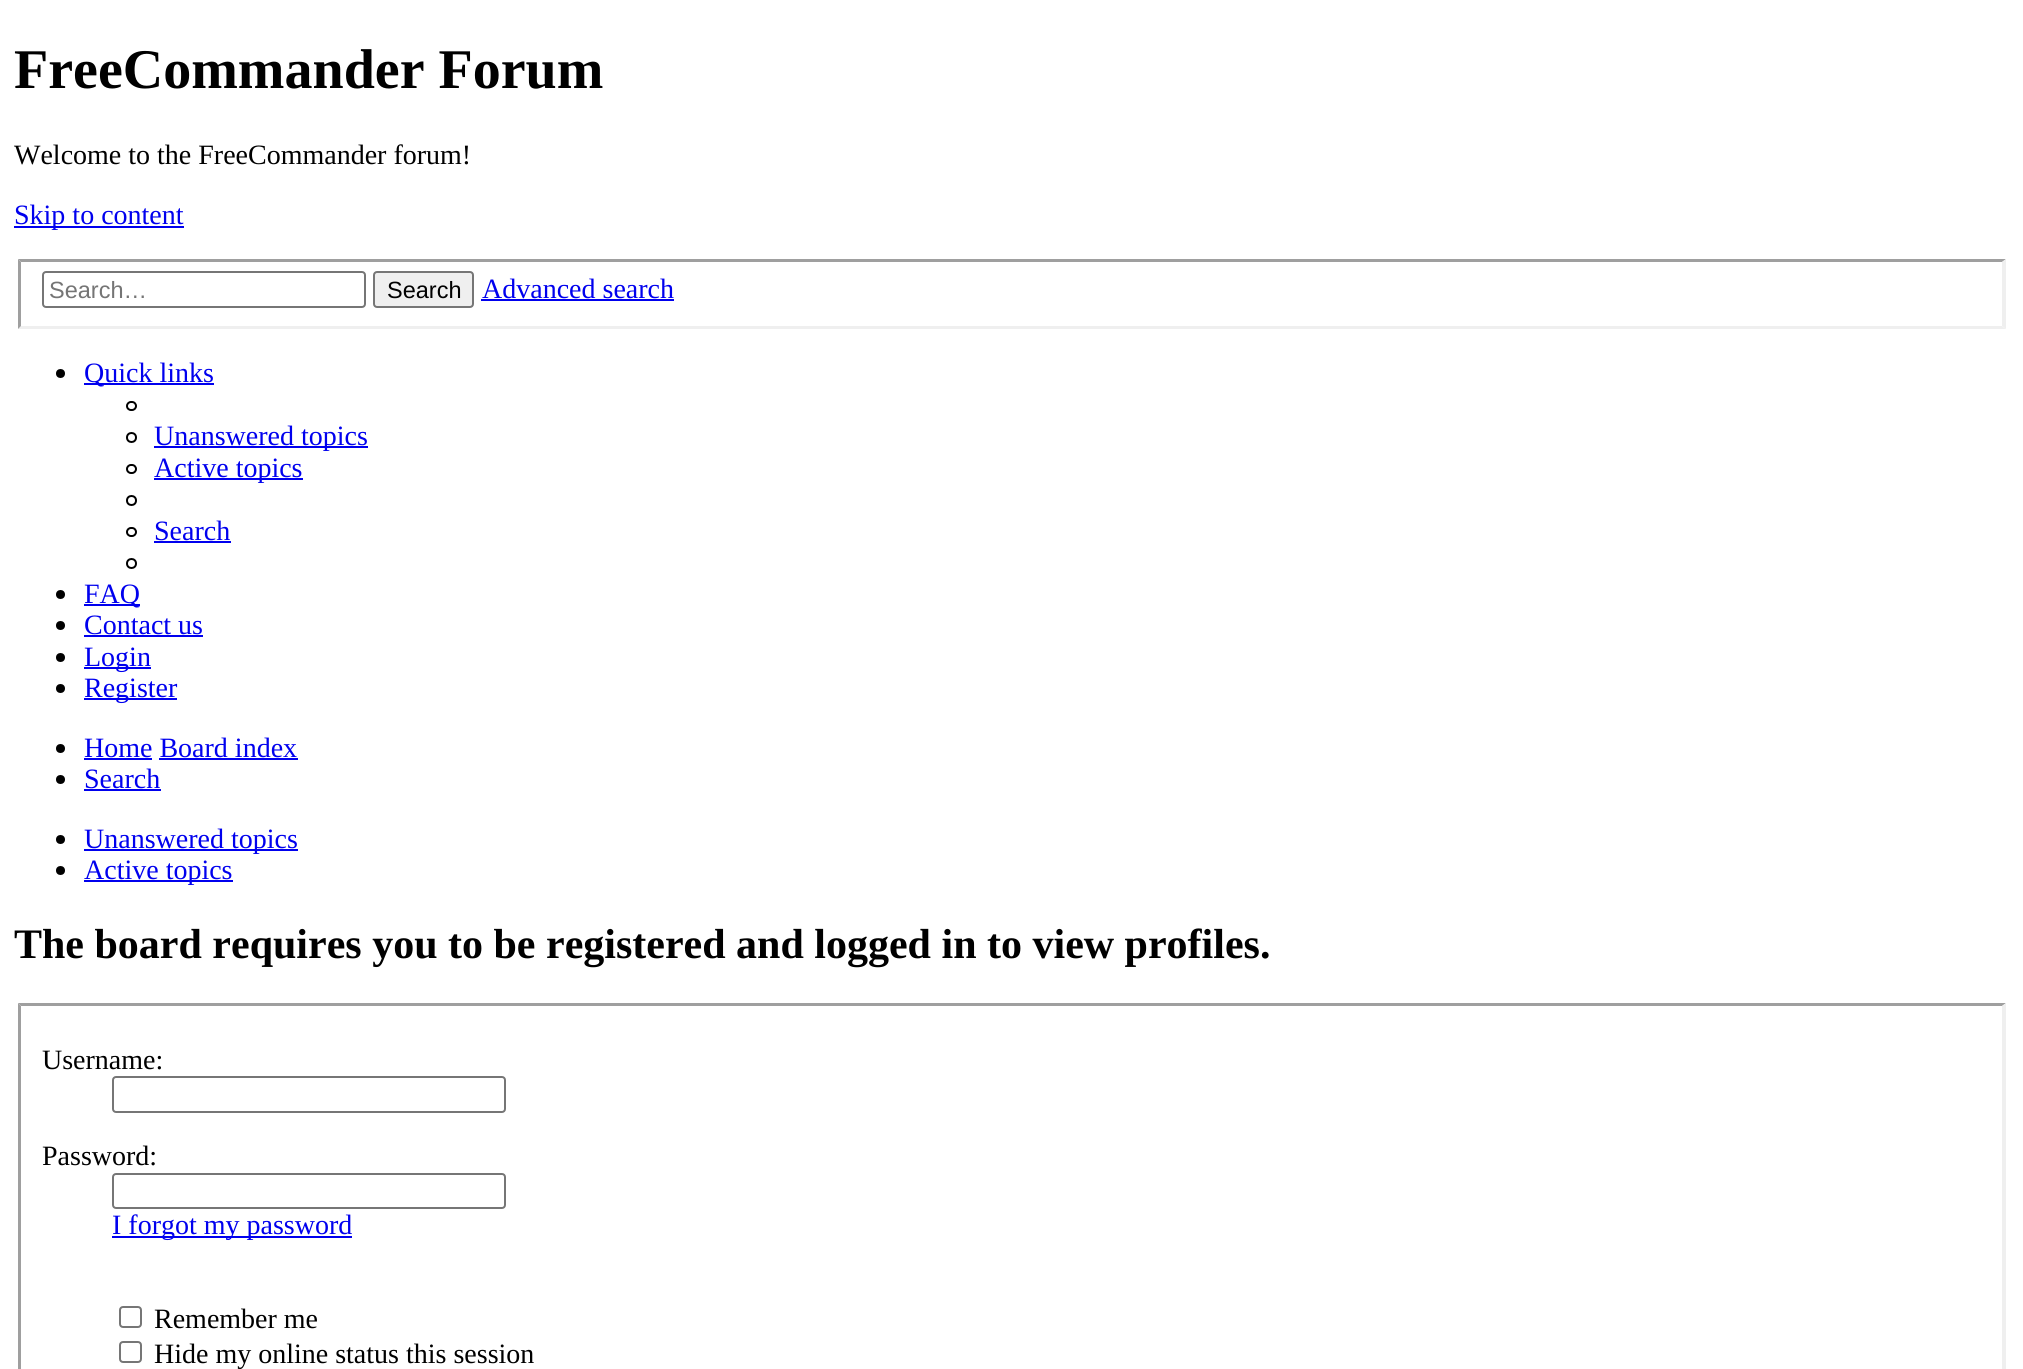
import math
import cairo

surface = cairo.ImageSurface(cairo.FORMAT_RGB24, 2023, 1369)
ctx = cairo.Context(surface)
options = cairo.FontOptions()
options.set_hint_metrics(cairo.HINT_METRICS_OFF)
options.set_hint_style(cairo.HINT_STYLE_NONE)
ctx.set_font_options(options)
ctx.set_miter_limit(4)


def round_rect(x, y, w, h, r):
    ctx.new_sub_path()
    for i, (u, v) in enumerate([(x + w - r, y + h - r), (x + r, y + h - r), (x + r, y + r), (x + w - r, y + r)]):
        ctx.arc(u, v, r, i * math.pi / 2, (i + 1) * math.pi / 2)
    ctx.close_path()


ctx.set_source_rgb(1, 1, 1)
ctx.paint()
ctx.select_font_face("Liberation Serif", cairo.FONT_SLANT_NORMAL, cairo.FONT_WEIGHT_BOLD)
ctx.set_font_size(56)
ctx.set_source_rgb(0, 0, 0)
ctx.move_to(14, 88)
ctx.show_text("FreeCommander Forum")
ctx.select_font_face("Liberation Serif")
ctx.set_font_size(28)
ctx.move_to(14, 164)
ctx.show_text("Welcome to the FreeCommander forum!")
ctx.set_source_rgb(0, 0, 0.933)
ctx.rectangle(14, 226, 170, 2)
ctx.fill()
ctx.move_to(14, 224)
ctx.show_text("Skip to content")
ctx.set_source_rgb(0.624, 0.624, 0.624)
ctx.new_path()
ctx.move_to(18, 259)
ctx.line_to(2006, 259)
ctx.line_to(2002, 262)
ctx.line_to(21, 262)
ctx.close_path()
ctx.fill()
ctx.set_source_rgb(0.937, 0.937, 0.937)
ctx.new_path()
ctx.move_to(2006, 259)
ctx.line_to(2006, 329)
ctx.line_to(2002, 326)
ctx.line_to(2002, 262)
ctx.close_path()
ctx.fill()
ctx.new_path()
ctx.move_to(2006, 329)
ctx.line_to(18, 329)
ctx.line_to(21, 326)
ctx.line_to(2002, 326)
ctx.close_path()
ctx.fill()
ctx.set_source_rgb(0.624, 0.624, 0.624)
ctx.new_path()
ctx.move_to(18, 329)
ctx.line_to(18, 259)
ctx.line_to(21, 262)
ctx.line_to(21, 326)
ctx.close_path()
ctx.fill()
round_rect(43, 272, 322, 35, 3)
ctx.set_source_rgb(0.463, 0.463, 0.463)
ctx.stroke()
ctx.select_font_face("Liberation Sans")
ctx.set_font_size(23.5)
ctx.set_source_rgb(0.459, 0.459, 0.459)
ctx.move_to(49, 298)
ctx.show_text("Search…")
ctx.set_source_rgb(0.937, 0.937, 0.937)
round_rect(374, 272, 99, 35, 3)
ctx.fill_preserve()
ctx.set_source_rgb(0.463, 0.463, 0.463)
ctx.stroke()
ctx.set_source_rgb(0, 0, 0)
ctx.move_to(387, 298)
ctx.show_text("Search")
ctx.select_font_face("Liberation Serif")
ctx.set_font_size(28)
ctx.set_source_rgb(0, 0, 0.933)
ctx.move_to(482, 298)
ctx.show_text("Advanced search")
ctx.rectangle(481, 299, 193, 2)
ctx.fill()
ctx.set_source_rgb(0, 0, 0)
ctx.arc(60.5, 373.5, 4.5, 0, 2 * math.pi)
ctx.fill()
ctx.set_source_rgb(0, 0, 0.933)
ctx.rectangle(84, 383, 130, 2)
ctx.fill()
ctx.move_to(84, 382)
ctx.show_text("Quick links")
round_rect(127, 402, 9, 8, 4)
ctx.set_source_rgb(0, 0, 0)
ctx.stroke()
ctx.arc(131.5, 437.5, 4.5, 0, 2 * math.pi)
ctx.stroke()
ctx.set_source_rgb(0, 0, 0.933)
ctx.rectangle(154, 446, 214, 2)
ctx.fill()
ctx.move_to(154, 445)
ctx.show_text("Unanswered topics")
round_rect(127, 465, 9, 8, 4)
ctx.set_source_rgb(0, 0, 0)
ctx.stroke()
ctx.set_source_rgb(0, 0, 0.933)
ctx.rectangle(154, 478, 149, 2)
ctx.fill()
ctx.move_to(154, 477)
ctx.show_text("Active topics")
ctx.new_path()
ctx.arc(131.5, 500.5, 4.5, 0, 2 * math.pi)
ctx.set_source_rgb(0, 0, 0)
ctx.stroke()
round_rect(127, 528, 9, 8, 4)
ctx.stroke()
ctx.set_source_rgb(0, 0, 0.933)
ctx.move_to(154, 540)
ctx.show_text("Search")
ctx.rectangle(154, 541, 77, 2)
ctx.fill()
ctx.arc(131.5, 563.5, 4.5, 0, 2 * math.pi)
ctx.set_source_rgb(0, 0, 0)
ctx.stroke()
ctx.arc(60.5, 594.5, 4.5, 0, 2 * math.pi)
ctx.fill()
ctx.set_source_rgb(0, 0, 0.933)
ctx.rectangle(84, 604, 56, 2)
ctx.fill()
ctx.move_to(84, 603)
ctx.show_text("FAQ")
ctx.set_source_rgb(0, 0, 0)
ctx.new_path()
ctx.arc(60.5, 625.5, 4.5, 0, 2 * math.pi)
ctx.fill()
ctx.set_source_rgb(0, 0, 0.933)
ctx.move_to(84, 634)
ctx.show_text("Contact us")
ctx.rectangle(84, 635, 119, 2)
ctx.fill()
ctx.set_source_rgb(0, 0, 0)
ctx.arc(60.5, 657.5, 4.5, 0, 2 * math.pi)
ctx.fill()
ctx.set_source_rgb(0, 0, 0.933)
ctx.rectangle(84, 667, 67, 2)
ctx.fill()
ctx.move_to(84, 666)
ctx.show_text("Login")
ctx.set_source_rgb(0, 0, 0)
ctx.new_path()
ctx.arc(60.5, 688.5, 4.5, 0, 2 * math.pi)
ctx.fill()
ctx.set_source_rgb(0, 0, 0.933)
ctx.rectangle(84, 698, 93, 2)
ctx.fill()
ctx.move_to(84, 697)
ctx.show_text("Register")
ctx.set_source_rgb(0, 0, 0)
ctx.new_path()
ctx.arc(60.5, 748.5, 4.5, 0, 2 * math.pi)
ctx.fill()
ctx.set_source_rgb(0, 0, 0.933)
ctx.move_to(84, 757)
ctx.show_text("Home Board index")
ctx.rectangle(84, 758, 68, 2)
ctx.fill()
ctx.rectangle(159, 758, 139, 2)
ctx.fill()
ctx.set_source_rgb(0, 0, 0)
ctx.arc(60.5, 779.5, 4.5, 0, 2 * math.pi)
ctx.fill()
ctx.set_source_rgb(0, 0, 0.933)
ctx.move_to(84, 788)
ctx.show_text("Search")
ctx.rectangle(84, 789, 77, 2)
ctx.fill()
ctx.set_source_rgb(0, 0, 0)
ctx.arc(60.5, 839.5, 4.5, 0, 2 * math.pi)
ctx.fill()
ctx.set_source_rgb(0, 0, 0.933)
ctx.rectangle(84, 849, 214, 2)
ctx.fill()
ctx.move_to(84, 848)
ctx.show_text("Unanswered topics")
ctx.set_source_rgb(0, 0, 0)
ctx.new_path()
ctx.arc(60.5, 870.5, 4.5, 0, 2 * math.pi)
ctx.fill()
ctx.set_source_rgb(0, 0, 0.933)
ctx.rectangle(84, 880, 149, 2)
ctx.fill()
ctx.move_to(84, 879)
ctx.show_text("Active topics")
ctx.select_font_face("Liberation Serif", cairo.FONT_SLANT_NORMAL, cairo.FONT_WEIGHT_BOLD)
ctx.set_font_size(42)
ctx.set_source_rgb(0, 0, 0)
ctx.move_to(14, 958)
ctx.show_text("The board requires you to be registered and logged in to view profiles.")
ctx.set_source_rgb(0.624, 0.624, 0.624)
ctx.new_path()
ctx.move_to(18, 1003)
ctx.line_to(2006, 1003)
ctx.line_to(2002, 1006)
ctx.line_to(21, 1006)
ctx.close_path()
ctx.fill()
ctx.set_source_rgb(0.937, 0.937, 0.937)
ctx.new_path()
ctx.move_to(2006, 1003)
ctx.line_to(2006, 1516)
ctx.line_to(2002, 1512)
ctx.line_to(2002, 1006)
ctx.close_path()
ctx.fill()
ctx.set_source_rgb(0.624, 0.624, 0.624)
ctx.new_path()
ctx.move_to(18, 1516)
ctx.line_to(18, 1003)
ctx.line_to(21, 1006)
ctx.line_to(21, 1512)
ctx.close_path()
ctx.fill()
ctx.select_font_face("Liberation Serif")
ctx.set_font_size(28)
ctx.set_source_rgb(0, 0, 0)
ctx.move_to(42, 1069)
ctx.show_text("Username:")
round_rect(113, 1077, 392, 35, 3)
ctx.set_source_rgb(0.463, 0.463, 0.463)
ctx.stroke()
ctx.set_source_rgb(0, 0, 0)
ctx.move_to(42, 1165)
ctx.show_text("Password:")
round_rect(113, 1174, 392, 34, 3)
ctx.set_source_rgb(0.463, 0.463, 0.463)
ctx.stroke()
ctx.set_source_rgb(0, 0, 0.933)
ctx.rectangle(112, 1236, 240, 2)
ctx.fill()
ctx.move_to(112, 1234)
ctx.show_text("I forgot my password")
round_rect(120, 1307, 21, 20, 3)
ctx.set_source_rgb(0.463, 0.463, 0.463)
ctx.stroke()
ctx.set_source_rgb(0, 0, 0)
ctx.move_to(154, 1328)
ctx.show_text("Remember me")
round_rect(120, 1342, 21, 20, 3)
ctx.set_source_rgb(0.463, 0.463, 0.463)
ctx.stroke()
ctx.set_source_rgb(0, 0, 0)
ctx.move_to(154, 1363)
ctx.show_text("Hide my online status this session")
surface.write_to_png("page.png")
